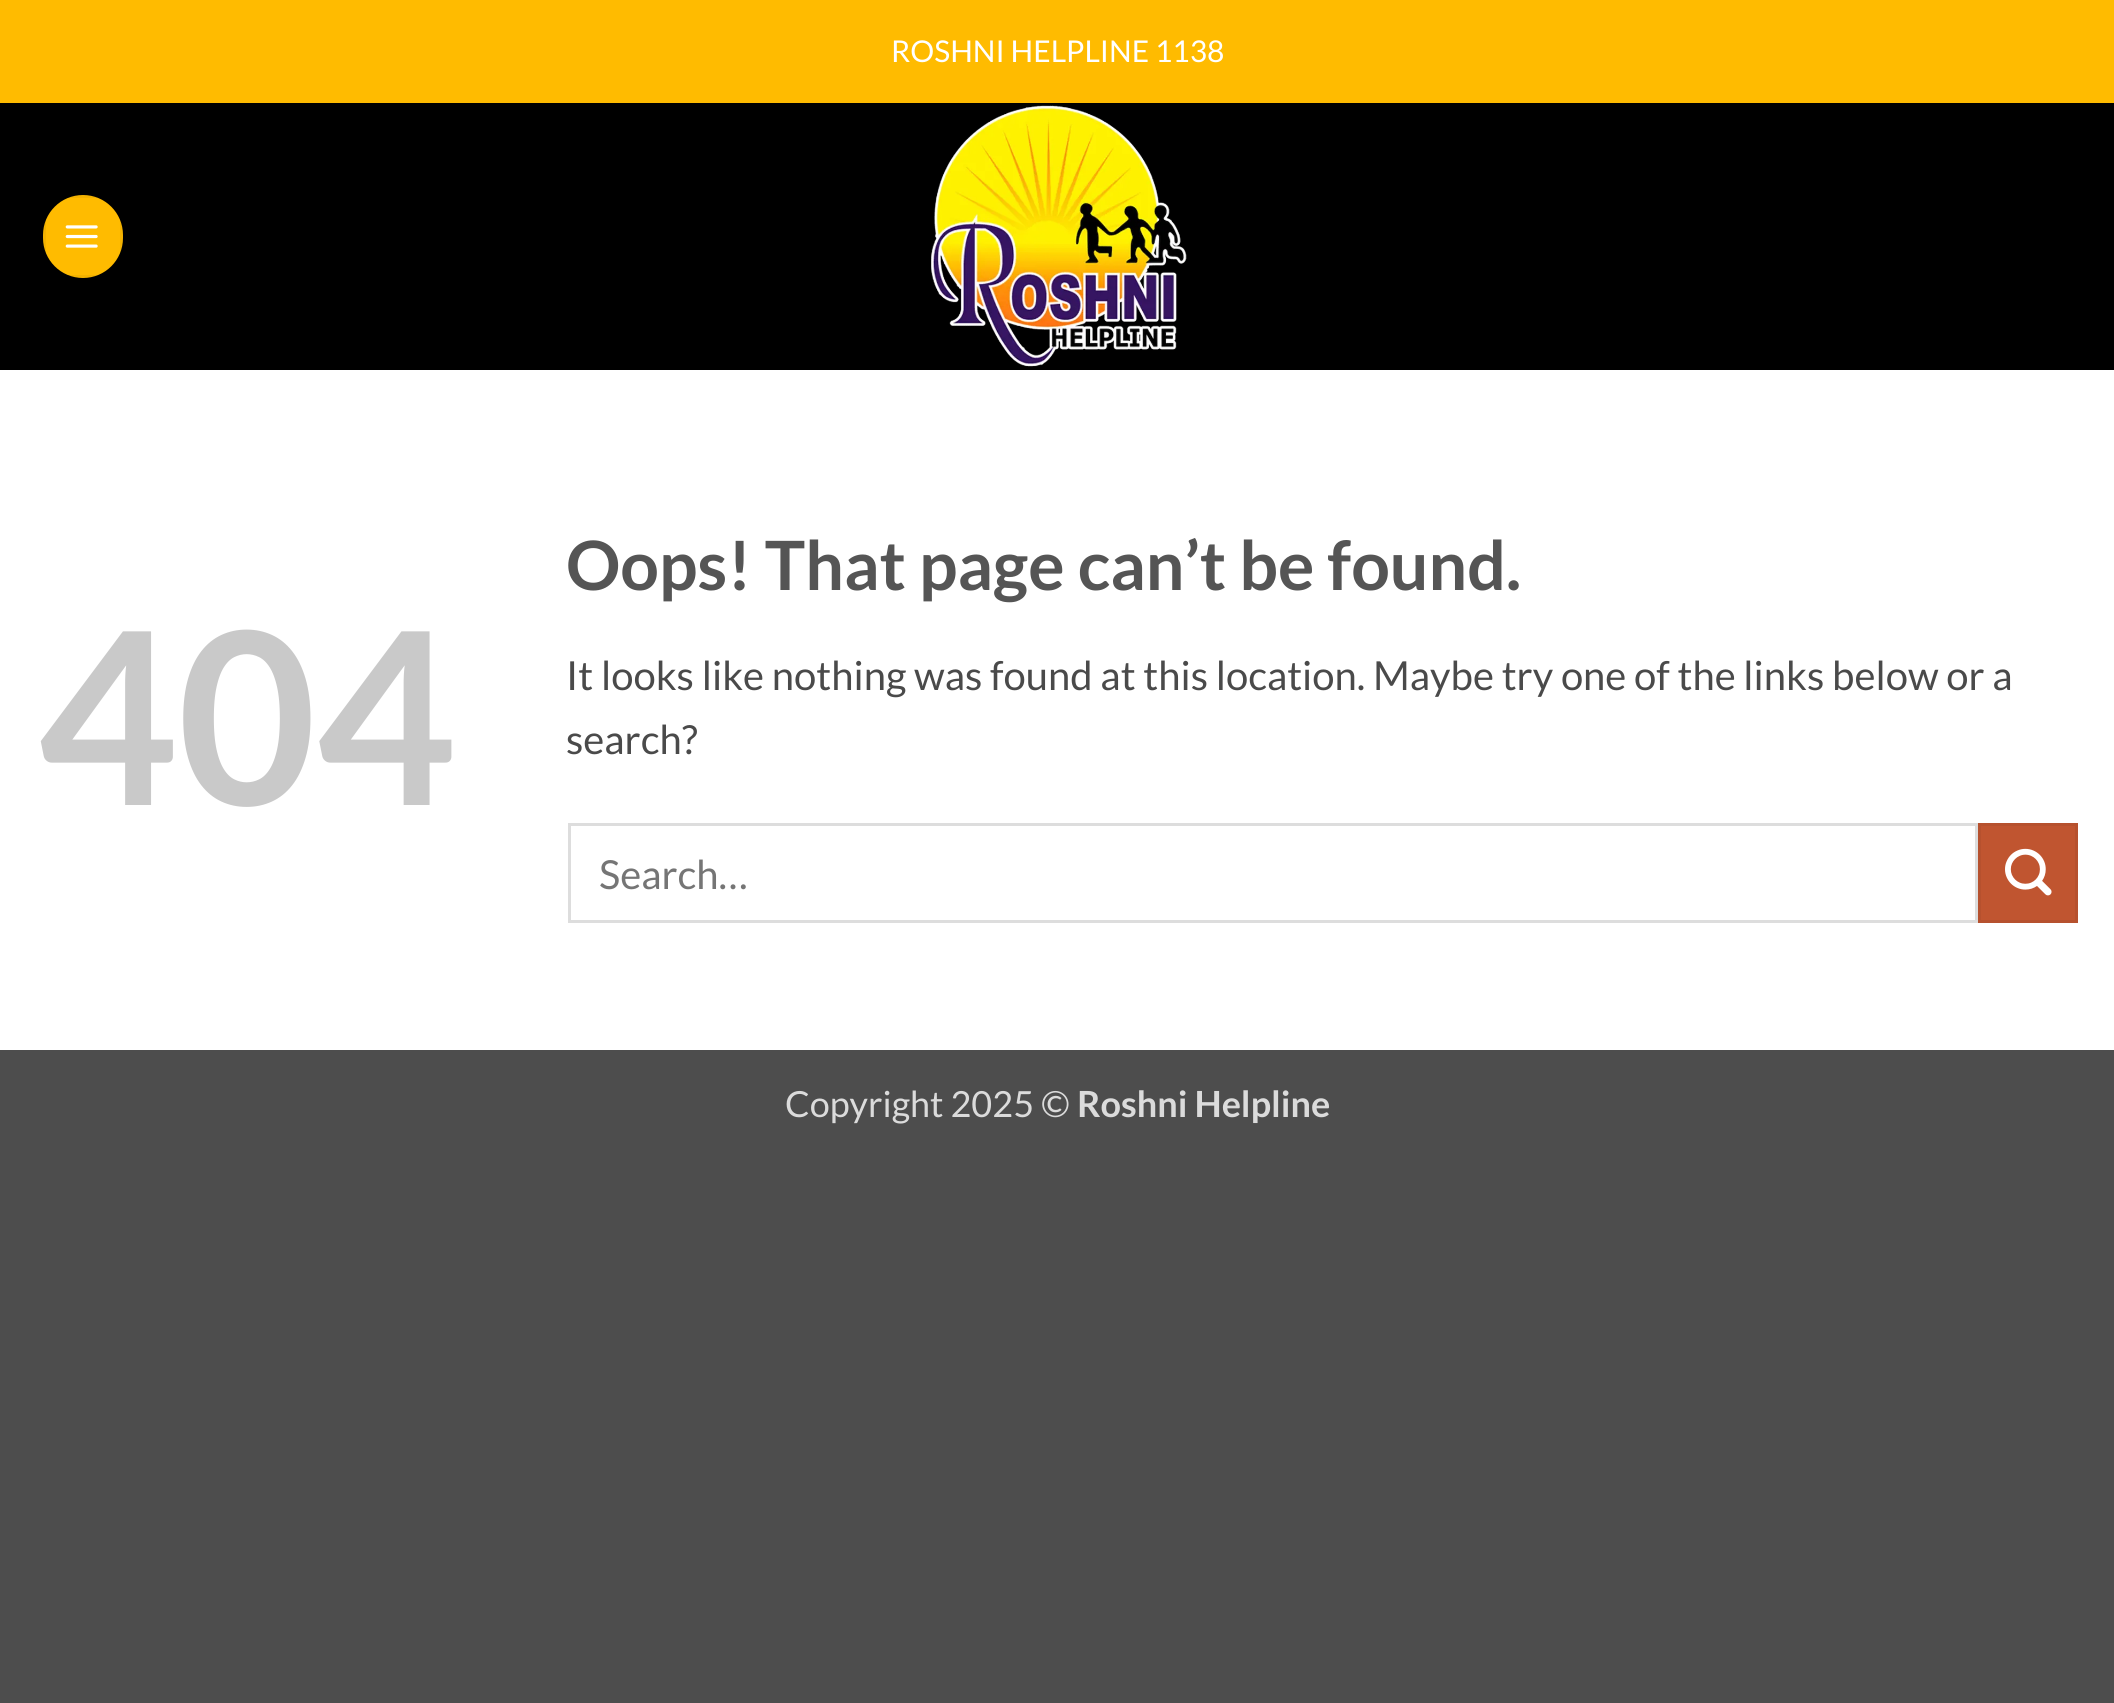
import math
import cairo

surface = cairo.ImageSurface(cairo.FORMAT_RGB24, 2114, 1703)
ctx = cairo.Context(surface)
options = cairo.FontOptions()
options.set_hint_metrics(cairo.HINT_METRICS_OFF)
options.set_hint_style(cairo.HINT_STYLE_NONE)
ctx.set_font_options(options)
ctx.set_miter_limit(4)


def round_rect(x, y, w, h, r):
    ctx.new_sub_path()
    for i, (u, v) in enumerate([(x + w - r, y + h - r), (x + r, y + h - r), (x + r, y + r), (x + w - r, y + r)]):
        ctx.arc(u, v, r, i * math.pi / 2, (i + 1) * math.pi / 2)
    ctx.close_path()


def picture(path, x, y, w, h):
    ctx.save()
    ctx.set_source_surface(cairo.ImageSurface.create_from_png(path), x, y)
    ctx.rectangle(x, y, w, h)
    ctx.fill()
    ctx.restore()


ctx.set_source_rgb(0.302, 0.302, 0.302)
ctx.paint()
ctx.set_source_rgb(1, 1, 1)
ctx.rectangle(0, 370, 2114, 680)
ctx.fill()
ctx.set_source_rgb(1, 0.733, 0)
ctx.rectangle(0, 0, 2114, 103)
ctx.fill()
ctx.select_font_face("Lato")
ctx.set_font_size(30)
ctx.set_source_rgb(1, 1, 1)
ctx.move_to(891, 62)
ctx.show_text("ROSHNI HELPLINE 1138")
ctx.set_source_rgb(0, 0, 0)
ctx.rectangle(0, 103, 2114, 267)
ctx.fill()
ctx.set_source_rgb(1, 0.733, 0)
round_rect(43, 195, 80, 83, 40)
ctx.fill()
ctx.rectangle(44.5, 196.5, 77, 80)
ctx.set_source_rgba(0, 0, 0, 0.05)
ctx.set_line_width(3)
ctx.stroke()
picture("img1.png", 65, 225, 33, 23)
picture("img2.png", 931, 105, 256, 262)
ctx.select_font_face("Lato", cairo.FONT_SLANT_NORMAL, cairo.FONT_WEIGHT_BOLD)
ctx.set_font_size(240)
ctx.set_source_rgb(0.788, 0.788, 0.788)
ctx.move_to(38, 805)
ctx.show_text("404")
ctx.set_font_size(68)
ctx.set_source_rgb(0.333, 0.333, 0.333)
ctx.move_to(566, 590)
ctx.show_text("Oops! That page can’t be found.")
ctx.select_font_face("Lato")
ctx.set_font_size(40)
ctx.set_source_rgb(0.29, 0.29, 0.29)
ctx.move_to(566, 690)
ctx.show_text("It looks like nothing was found at this location. Maybe try one of the links below or a")
ctx.move_to(566, 754)
ctx.show_text("search?")
ctx.rectangle(569.5, 824.5, 1407, 97)
ctx.set_source_rgb(0.867, 0.867, 0.867)
ctx.stroke()
ctx.set_source_rgb(0.459, 0.459, 0.459)
ctx.move_to(599, 889)
ctx.show_text("Search…")
ctx.set_source_rgb(0.753, 0.333, 0.188)
ctx.rectangle(1979.5, 824.5, 97, 97)
ctx.fill_preserve()
ctx.set_source_rgb(0.714, 0.318, 0.18)
ctx.stroke()
picture("img3.png", 2005, 848, 47, 48)
ctx.set_font_size(36)
ctx.set_source_rgb(0.859, 0.859, 0.859)
ctx.move_to(785, 1117)
ctx.show_text("Copyright 2025 ©")
ctx.select_font_face("Lato", cairo.FONT_SLANT_NORMAL, cairo.FONT_WEIGHT_BOLD)
ctx.move_to(1077, 1117)
ctx.show_text("Roshni Helpline")
surface.write_to_png("page.png")
